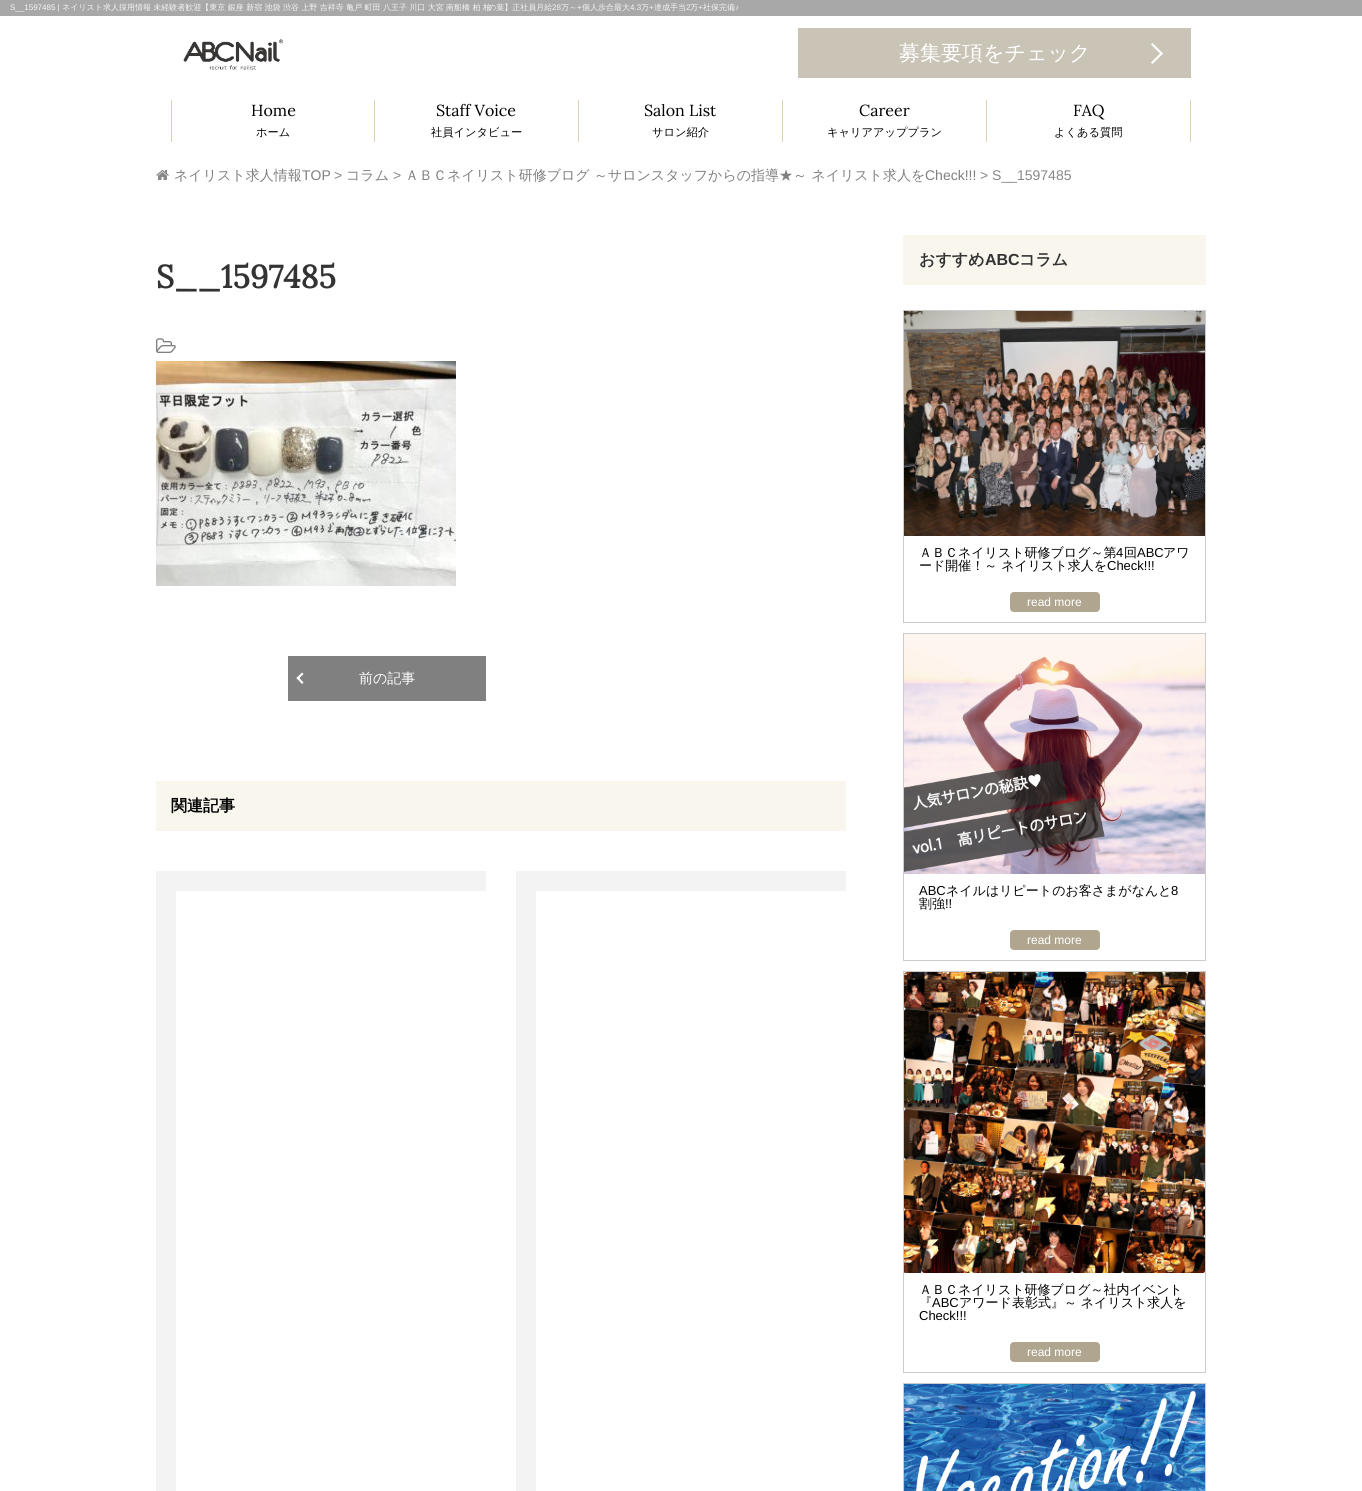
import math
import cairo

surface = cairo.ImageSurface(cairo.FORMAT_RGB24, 1362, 1491)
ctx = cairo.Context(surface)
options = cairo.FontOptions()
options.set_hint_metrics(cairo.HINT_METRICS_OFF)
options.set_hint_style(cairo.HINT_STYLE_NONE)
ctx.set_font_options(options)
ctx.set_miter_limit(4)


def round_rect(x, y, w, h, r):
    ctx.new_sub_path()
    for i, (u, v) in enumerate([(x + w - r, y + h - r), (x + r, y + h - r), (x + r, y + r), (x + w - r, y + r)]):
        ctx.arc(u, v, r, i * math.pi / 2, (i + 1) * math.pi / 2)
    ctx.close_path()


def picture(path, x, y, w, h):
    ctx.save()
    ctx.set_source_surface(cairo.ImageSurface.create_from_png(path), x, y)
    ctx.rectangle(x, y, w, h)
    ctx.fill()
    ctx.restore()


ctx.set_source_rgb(1, 1, 1)
ctx.paint()
ctx.set_source_rgb(0.659, 0.659, 0.659)
ctx.rectangle(0, 0, 1362, 16)
ctx.fill()
ctx.select_font_face("Liberation Sans")
ctx.set_font_size(8)
ctx.set_source_rgb(0.961, 0.961, 0.961)
ctx.move_to(10, 10)
ctx.show_text("S__1597485 |")
ctx.select_font_face("WenQuanYi Zen Hei Medium")
ctx.move_to(62, 10)
ctx.show_text("ネイリスト求人採用情報 未経験者歓迎【東京 銀座 新宿 池袋 渋谷 上野 吉祥寺 亀戸 町田 八王子 川口 大宮 南船橋 柏 柏")
ctx.move_to(488, 10)
ctx.show_text("の葉】正社員月給")
ctx.select_font_face("Liberation Sans")
ctx.move_to(552, 10)
ctx.show_text("28")
ctx.select_font_face("WenQuanYi Zen Hei Medium")
ctx.move_to(561, 10)
ctx.show_text("万～")
ctx.select_font_face("Liberation Sans")
ctx.move_to(577, 10)
ctx.show_text("+")
ctx.select_font_face("WenQuanYi Zen Hei Medium")
ctx.move_to(582, 10)
ctx.show_text("個人歩合最大")
ctx.select_font_face("Liberation Sans")
ctx.move_to(630, 10)
ctx.show_text("4.3")
ctx.select_font_face("WenQuanYi Zen Hei Medium")
ctx.move_to(641, 10)
ctx.show_text("万")
ctx.select_font_face("Liberation Sans")
ctx.move_to(649, 10)
ctx.show_text("+")
ctx.select_font_face("WenQuanYi Zen Hei Medium")
ctx.move_to(654, 10)
ctx.show_text("達成手当")
ctx.select_font_face("Liberation Sans")
ctx.move_to(686, 10)
ctx.show_text("2")
ctx.select_font_face("WenQuanYi Zen Hei Medium")
ctx.move_to(690, 10)
ctx.show_text("万")
ctx.select_font_face("Liberation Sans")
ctx.move_to(698, 10)
ctx.show_text("+")
ctx.select_font_face("WenQuanYi Zen Hei Medium")
ctx.move_to(703, 10)
ctx.show_text("社保完備")
ctx.select_font_face("Liberation Sans")
ctx.move_to(735, 10)
ctx.show_text("♪")
picture("img1.png", 183, 39, 100, 31)
ctx.set_source_rgb(0.792, 0.769, 0.718)
ctx.rectangle(798, 28, 393, 50)
ctx.fill()
ctx.select_font_face("WenQuanYi Zen Hei Medium")
ctx.set_font_size(21)
ctx.set_source_rgb(1, 1, 1)
ctx.move_to(899, 60)
ctx.show_text("募集要項をチェック")
ctx.new_path()
ctx.move_to(1152.5, 43)
ctx.line_to(1163, 53.5)
ctx.line_to(1161.5, 55)
ctx.line_to(1151, 44.5)
ctx.close_path()
ctx.fill()
ctx.new_path()
ctx.move_to(1161.5, 52)
ctx.line_to(1163, 53.5)
ctx.line_to(1152.5, 64)
ctx.line_to(1151, 62.5)
ctx.close_path()
ctx.fill()
ctx.set_source_rgb(0.875, 0.824, 0.698)
ctx.rectangle(374, 100, 1, 42)
ctx.fill()
ctx.rectangle(171, 100, 1, 42)
ctx.fill()
ctx.select_font_face("Lora")
ctx.set_font_size(16)
ctx.set_source_rgb(0, 0, 0)
ctx.move_to(251, 116)
ctx.show_text("Home")
ctx.select_font_face("WenQuanYi Zen Hei Medium")
ctx.set_font_size(11.25)
ctx.move_to(256, 136)
ctx.show_text("ホーム")
ctx.set_source_rgb(0.875, 0.824, 0.698)
ctx.rectangle(578, 100, 1, 42)
ctx.fill()
ctx.select_font_face("Lora")
ctx.set_font_size(16)
ctx.set_source_rgb(0, 0, 0)
ctx.move_to(436, 116)
ctx.show_text("Staff Voice")
ctx.select_font_face("WenQuanYi Zen Hei Medium")
ctx.set_font_size(11.25)
ctx.move_to(431, 136)
ctx.show_text("社員インタビュー")
ctx.set_source_rgb(0.875, 0.824, 0.698)
ctx.rectangle(782, 100, 1, 42)
ctx.fill()
ctx.select_font_face("Lora")
ctx.set_font_size(16)
ctx.set_source_rgb(0, 0, 0)
ctx.move_to(644, 116)
ctx.show_text("Salon List")
ctx.select_font_face("WenQuanYi Zen Hei Medium")
ctx.set_font_size(11.25)
ctx.move_to(652, 136)
ctx.show_text("サロン紹介")
ctx.set_source_rgb(0.875, 0.824, 0.698)
ctx.rectangle(986, 100, 1, 42)
ctx.fill()
ctx.select_font_face("Lora")
ctx.set_font_size(16)
ctx.set_source_rgb(0, 0, 0)
ctx.move_to(859, 116)
ctx.show_text("Career")
ctx.select_font_face("WenQuanYi Zen Hei Medium")
ctx.set_font_size(11.25)
ctx.move_to(827, 136)
ctx.show_text("キャリアアッププラン")
ctx.set_source_rgb(0.875, 0.824, 0.698)
ctx.rectangle(1190, 100, 1, 42)
ctx.fill()
ctx.select_font_face("Lora")
ctx.set_font_size(16)
ctx.set_source_rgb(0, 0, 0)
ctx.move_to(1073, 116)
ctx.show_text("FAQ")
ctx.select_font_face("WenQuanYi Zen Hei Medium")
ctx.set_font_size(11.25)
ctx.move_to(1054, 136)
ctx.show_text("よくある質問")
picture("img2.png", 156, 170, 13, 10)
ctx.set_font_size(14)
ctx.set_source_rgb(0.502, 0.502, 0.502)
ctx.move_to(174, 180)
ctx.show_text("ネイリスト求人情報")
ctx.select_font_face("Liberation Sans")
ctx.move_to(302, 180)
ctx.show_text("TOP")
ctx.set_source_rgb(0.533, 0.533, 0.533)
ctx.move_to(334, 180)
ctx.show_text(">")
ctx.select_font_face("WenQuanYi Zen Hei Medium")
ctx.set_source_rgb(0.502, 0.502, 0.502)
ctx.move_to(346, 180)
ctx.show_text("コラム")
ctx.select_font_face("Liberation Sans")
ctx.set_source_rgb(0.533, 0.533, 0.533)
ctx.move_to(393, 180)
ctx.show_text(">")
ctx.select_font_face("WenQuanYi Zen Hei Medium")
ctx.set_source_rgb(0.502, 0.502, 0.502)
ctx.move_to(405, 180)
ctx.show_text("ＡＢＣネイリスト研修ブログ ～サロンスタッフからの指導★～ ネイリスト求人を")
ctx.select_font_face("Liberation Sans")
ctx.move_to(925, 180)
ctx.show_text("Check!!!")
ctx.set_source_rgb(0.533, 0.533, 0.533)
ctx.move_to(980, 180)
ctx.show_text("> S__1597485")
ctx.select_font_face("Lora", cairo.FONT_SLANT_NORMAL, cairo.FONT_WEIGHT_BOLD)
ctx.set_font_size(32)
ctx.set_source_rgb(0.2, 0.2, 0.2)
ctx.move_to(156, 288)
ctx.show_text("S__1597485")
picture("img3.png", 156, 338, 20, 15)
picture("img4.png", 156, 361, 300, 225)
ctx.set_source_rgb(0.502, 0.502, 0.502)
ctx.rectangle(288, 656, 198, 45)
ctx.fill()
ctx.set_source_rgb(1, 1, 1)
ctx.new_path()
ctx.move_to(302, 684)
ctx.line_to(296.5, 678)
ctx.line_to(298, 676.5)
ctx.line_to(303.5, 682.5)
ctx.close_path()
ctx.fill()
ctx.new_path()
ctx.move_to(298, 679.5)
ctx.line_to(296.5, 678)
ctx.line_to(302, 672.5)
ctx.line_to(303.5, 674)
ctx.close_path()
ctx.fill()
ctx.select_font_face("WenQuanYi Zen Hei Medium")
ctx.set_font_size(14)
ctx.move_to(359, 683)
ctx.show_text("前の記事")
ctx.set_source_rgb(0.973, 0.961, 0.933)
ctx.rectangle(156, 781, 690, 50)
ctx.fill()
ctx.select_font_face("WenQuanYi Zen Hei", cairo.FONT_SLANT_NORMAL, cairo.FONT_WEIGHT_BOLD)
ctx.set_font_size(16)
ctx.set_source_rgb(0, 0, 0)
ctx.move_to(171, 811)
ctx.show_text("関連記事")
ctx.set_source_rgb(0.953, 0.953, 0.953)
ctx.rectangle(156, 871, 330, 620)
ctx.fill()
ctx.set_source_rgb(1, 1, 1)
ctx.rectangle(176, 891, 310, 600)
ctx.fill()
ctx.set_source_rgb(0.953, 0.953, 0.953)
ctx.rectangle(516, 871, 330, 620)
ctx.fill()
ctx.set_source_rgb(1, 1, 1)
ctx.rectangle(536, 891, 310, 600)
ctx.fill()
ctx.set_source_rgb(0.973, 0.961, 0.933)
ctx.rectangle(903, 235, 303, 50)
ctx.fill()
ctx.set_source_rgb(0.2, 0.2, 0.2)
ctx.move_to(919, 265)
ctx.show_text("おすすめ")
ctx.select_font_face("Liberation Sans", cairo.FONT_SLANT_NORMAL, cairo.FONT_WEIGHT_BOLD)
ctx.move_to(985, 265)
ctx.show_text("ABC")
ctx.select_font_face("WenQuanYi Zen Hei", cairo.FONT_SLANT_NORMAL, cairo.FONT_WEIGHT_BOLD)
ctx.move_to(1019, 265)
ctx.show_text("コラム")
ctx.rectangle(903.5, 310.5, 302, 312)
ctx.set_source_rgb(0.8, 0.8, 0.8)
ctx.set_line_width(1)
ctx.stroke()
picture("img5.png", 904, 311, 301, 225)
ctx.select_font_face("WenQuanYi Zen Hei Medium")
ctx.set_font_size(13)
ctx.set_source_rgb(0, 0, 0)
ctx.move_to(919, 557)
ctx.show_text("ＡＢＣネイリスト研修ブログ～第")
ctx.select_font_face("Liberation Sans")
ctx.move_to(1116, 557)
ctx.show_text("4")
ctx.select_font_face("WenQuanYi Zen Hei Medium")
ctx.move_to(1124, 557)
ctx.show_text("回")
ctx.select_font_face("Liberation Sans")
ctx.move_to(1137, 557)
ctx.show_text("ABC")
ctx.select_font_face("WenQuanYi Zen Hei Medium")
ctx.move_to(1163, 557)
ctx.show_text("アワ")
ctx.move_to(919, 570)
ctx.show_text("ード開催！～ ネイリスト求人を")
ctx.select_font_face("Liberation Sans")
ctx.move_to(1107, 570)
ctx.show_text("Check!!!")
ctx.set_source_rgb(0.69, 0.651, 0.565)
round_rect(1010, 592, 90, 20, 4)
ctx.fill()
ctx.set_font_size(12)
ctx.set_source_rgb(1, 1, 1)
ctx.move_to(1027, 606)
ctx.show_text("read more")
ctx.rectangle(903.5, 633.5, 302, 327)
ctx.set_source_rgb(0.8, 0.8, 0.8)
ctx.stroke()
picture("img6.png", 904, 634, 301, 240)
ctx.set_font_size(13)
ctx.set_source_rgb(0, 0, 0)
ctx.move_to(919, 895)
ctx.show_text("ABC")
ctx.select_font_face("WenQuanYi Zen Hei Medium")
ctx.move_to(946, 895)
ctx.show_text("ネイルはリピートのお客さまがなんと")
ctx.select_font_face("Liberation Sans")
ctx.move_to(1171, 895)
ctx.show_text("8")
ctx.select_font_face("WenQuanYi Zen Hei Medium")
ctx.move_to(919, 908)
ctx.show_text("割強")
ctx.select_font_face("Liberation Sans")
ctx.move_to(945, 908)
ctx.show_text("!!")
ctx.set_source_rgb(0.69, 0.651, 0.565)
round_rect(1010, 930, 90, 20, 4)
ctx.fill()
ctx.set_font_size(12)
ctx.set_source_rgb(1, 1, 1)
ctx.move_to(1027, 944)
ctx.show_text("read more")
ctx.rectangle(903.5, 971.5, 302, 401)
ctx.set_source_rgb(0.8, 0.8, 0.8)
ctx.stroke()
picture("img7.png", 904, 972, 301, 301)
ctx.select_font_face("WenQuanYi Zen Hei Medium")
ctx.set_font_size(13)
ctx.set_source_rgb(0, 0, 0)
ctx.move_to(919, 1294)
ctx.show_text("ＡＢＣネイリスト研修ブログ～社内イベント")
ctx.move_to(919, 1307)
ctx.show_text("『")
ctx.select_font_face("Liberation Sans")
ctx.move_to(932, 1307)
ctx.show_text("ABC")
ctx.select_font_face("WenQuanYi Zen Hei Medium")
ctx.move_to(959, 1307)
ctx.show_text("アワード表彰式』～ ネイリスト求人を")
ctx.select_font_face("Liberation Sans")
ctx.move_to(919, 1320)
ctx.show_text("Check!!!")
ctx.set_source_rgb(0.69, 0.651, 0.565)
round_rect(1010, 1342, 90, 20, 4)
ctx.fill()
ctx.set_font_size(12)
ctx.set_source_rgb(1, 1, 1)
ctx.move_to(1027, 1356)
ctx.show_text("read more")
ctx.rectangle(903.5, 1383.5, 302, 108)
ctx.set_source_rgb(0.8, 0.8, 0.8)
ctx.stroke()
picture("img8.png", 904, 1384, 301, 107)
surface.write_to_png("page.png")
